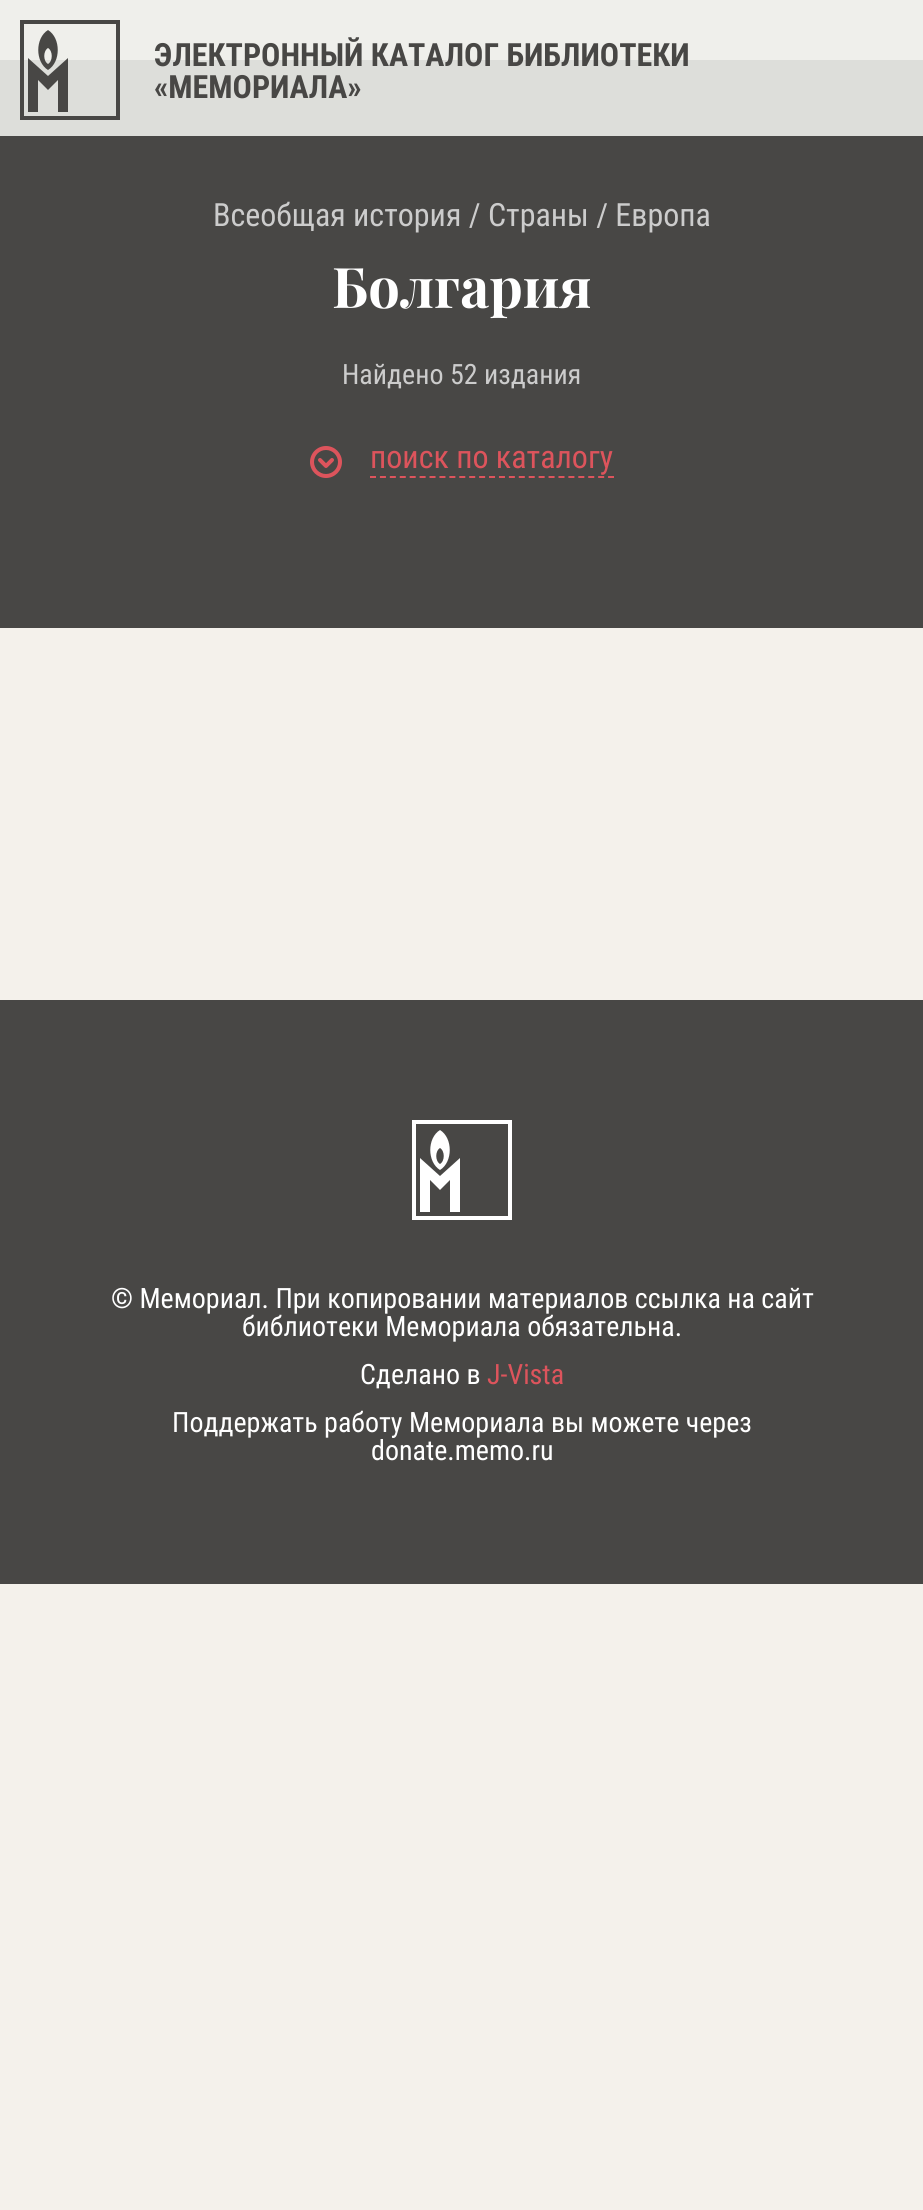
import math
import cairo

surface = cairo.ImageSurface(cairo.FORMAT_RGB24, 923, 2210)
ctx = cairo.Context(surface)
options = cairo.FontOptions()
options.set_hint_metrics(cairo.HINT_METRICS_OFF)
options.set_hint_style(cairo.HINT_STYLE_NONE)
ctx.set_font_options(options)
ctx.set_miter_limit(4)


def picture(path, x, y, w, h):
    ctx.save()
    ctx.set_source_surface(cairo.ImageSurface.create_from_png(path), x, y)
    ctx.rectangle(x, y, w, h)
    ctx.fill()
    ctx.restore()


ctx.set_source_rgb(0.957, 0.945, 0.918)
ctx.paint()
ctx.set_source_rgb(0.937, 0.937, 0.918)
ctx.rectangle(0, 0, 923, 60)
ctx.fill()
ctx.set_source_rgb(0.867, 0.871, 0.855)
ctx.rectangle(0, 60, 923, 76)
ctx.fill()
ctx.set_source_rgb(0.282, 0.278, 0.271)
ctx.set_fill_rule(cairo.FILL_RULE_EVEN_ODD)
ctx.new_path()
ctx.move_to(20, 120)
ctx.line_to(20, 20)
ctx.line_to(120, 20)
ctx.line_to(120, 120)
ctx.close_path()
ctx.move_to(116, 24)
ctx.line_to(24, 24)
ctx.line_to(24, 116)
ctx.line_to(116, 116)
ctx.close_path()
ctx.move_to(68, 58)
ctx.line_to(68, 112)
ctx.line_to(58, 112)
ctx.line_to(58, 80)
ctx.line_to(48, 90)
ctx.line_to(38, 80)
ctx.line_to(38, 112)
ctx.line_to(28, 112)
ctx.line_to(28, 58)
ctx.line_to(48, 76)
ctx.close_path()
ctx.move_to(48, 70)
ctx.curve_to(35, 62, 35, 38, 48, 30)
ctx.curve_to(61, 38, 61, 62, 48, 70)
ctx.close_path()
ctx.move_to(48, 48)
ctx.curve_to(43, 51, 43, 61, 48, 64)
ctx.curve_to(53, 61, 53, 51, 48, 48)
ctx.close_path()
ctx.fill()
ctx.select_font_face("Roboto Condensed", cairo.FONT_SLANT_NORMAL, cairo.FONT_WEIGHT_BOLD)
ctx.set_font_size(32)
ctx.move_to(154, 66)
ctx.show_text("ЭЛЕКТРОННЫЙ КАТАЛОГ БИБЛИОТЕКИ")
ctx.move_to(154, 98)
ctx.show_text("«МЕМОРИАЛА»")
ctx.rectangle(0, 136, 923, 492)
ctx.fill()
ctx.select_font_face("Roboto Condensed")
ctx.set_source_rgb(0.8, 0.8, 0.8)
ctx.move_to(213, 226)
ctx.show_text("Всеобщая история / Страны / Европа")
ctx.select_font_face("Playfair Display", cairo.FONT_SLANT_NORMAL, cairo.FONT_WEIGHT_BOLD)
ctx.set_font_size(56)
ctx.set_source_rgb(1, 1, 1)
ctx.move_to(332, 308)
ctx.show_text("Болгария")
ctx.select_font_face("Roboto Condensed")
ctx.set_font_size(28)
ctx.set_source_rgb(0.8, 0.8, 0.8)
ctx.move_to(342, 384)
ctx.show_text("Найдено 52 издания")
picture("img1.png", 310, 446, 32, 32)
ctx.set_font_size(32)
ctx.set_source_rgb(0.867, 0.329, 0.361)
ctx.move_to(370, 468)
ctx.show_text("поиск по каталогу")
ctx.new_path()
ctx.move_to(370, 477)
ctx.line_to(614, 477)
ctx.set_dash([6, 3.92])
ctx.stroke()
ctx.set_source_rgb(0.282, 0.278, 0.271)
ctx.rectangle(0, 1000, 923, 584)
ctx.fill()
ctx.set_source_rgb(1, 1, 1)
ctx.new_path()
ctx.move_to(412, 1220)
ctx.line_to(412, 1120)
ctx.line_to(512, 1120)
ctx.line_to(512, 1220)
ctx.close_path()
ctx.move_to(508, 1124)
ctx.line_to(416, 1124)
ctx.line_to(416, 1216)
ctx.line_to(508, 1216)
ctx.close_path()
ctx.move_to(460, 1158)
ctx.line_to(460, 1212)
ctx.line_to(450, 1212)
ctx.line_to(450, 1180)
ctx.line_to(440, 1190)
ctx.line_to(430, 1180)
ctx.line_to(430, 1212)
ctx.line_to(420, 1212)
ctx.line_to(420, 1158)
ctx.line_to(440, 1176)
ctx.close_path()
ctx.move_to(440, 1170)
ctx.curve_to(427, 1162, 427, 1138, 440, 1130)
ctx.curve_to(453, 1138, 453, 1162, 440, 1170)
ctx.close_path()
ctx.move_to(440, 1148)
ctx.curve_to(435, 1151, 435, 1161, 440, 1164)
ctx.curve_to(445, 1161, 445, 1151, 440, 1148)
ctx.close_path()
ctx.fill()
ctx.set_font_size(28)
ctx.move_to(111, 1308)
ctx.show_text("© Мемориал. При копировании материалов ссылка на сайт")
ctx.move_to(242, 1336)
ctx.show_text("библиотеки Мемориала обязательна.")
ctx.move_to(360, 1384)
ctx.show_text("Сделано в")
ctx.set_source_rgb(0.867, 0.329, 0.361)
ctx.move_to(487, 1384)
ctx.show_text("J-Vista")
ctx.set_source_rgb(1, 1, 1)
ctx.move_to(172, 1432)
ctx.show_text("Поддержать работу Мемориала вы можете через")
ctx.move_to(371, 1460)
ctx.show_text("donate.memo.ru")
surface.write_to_png("page.png")
